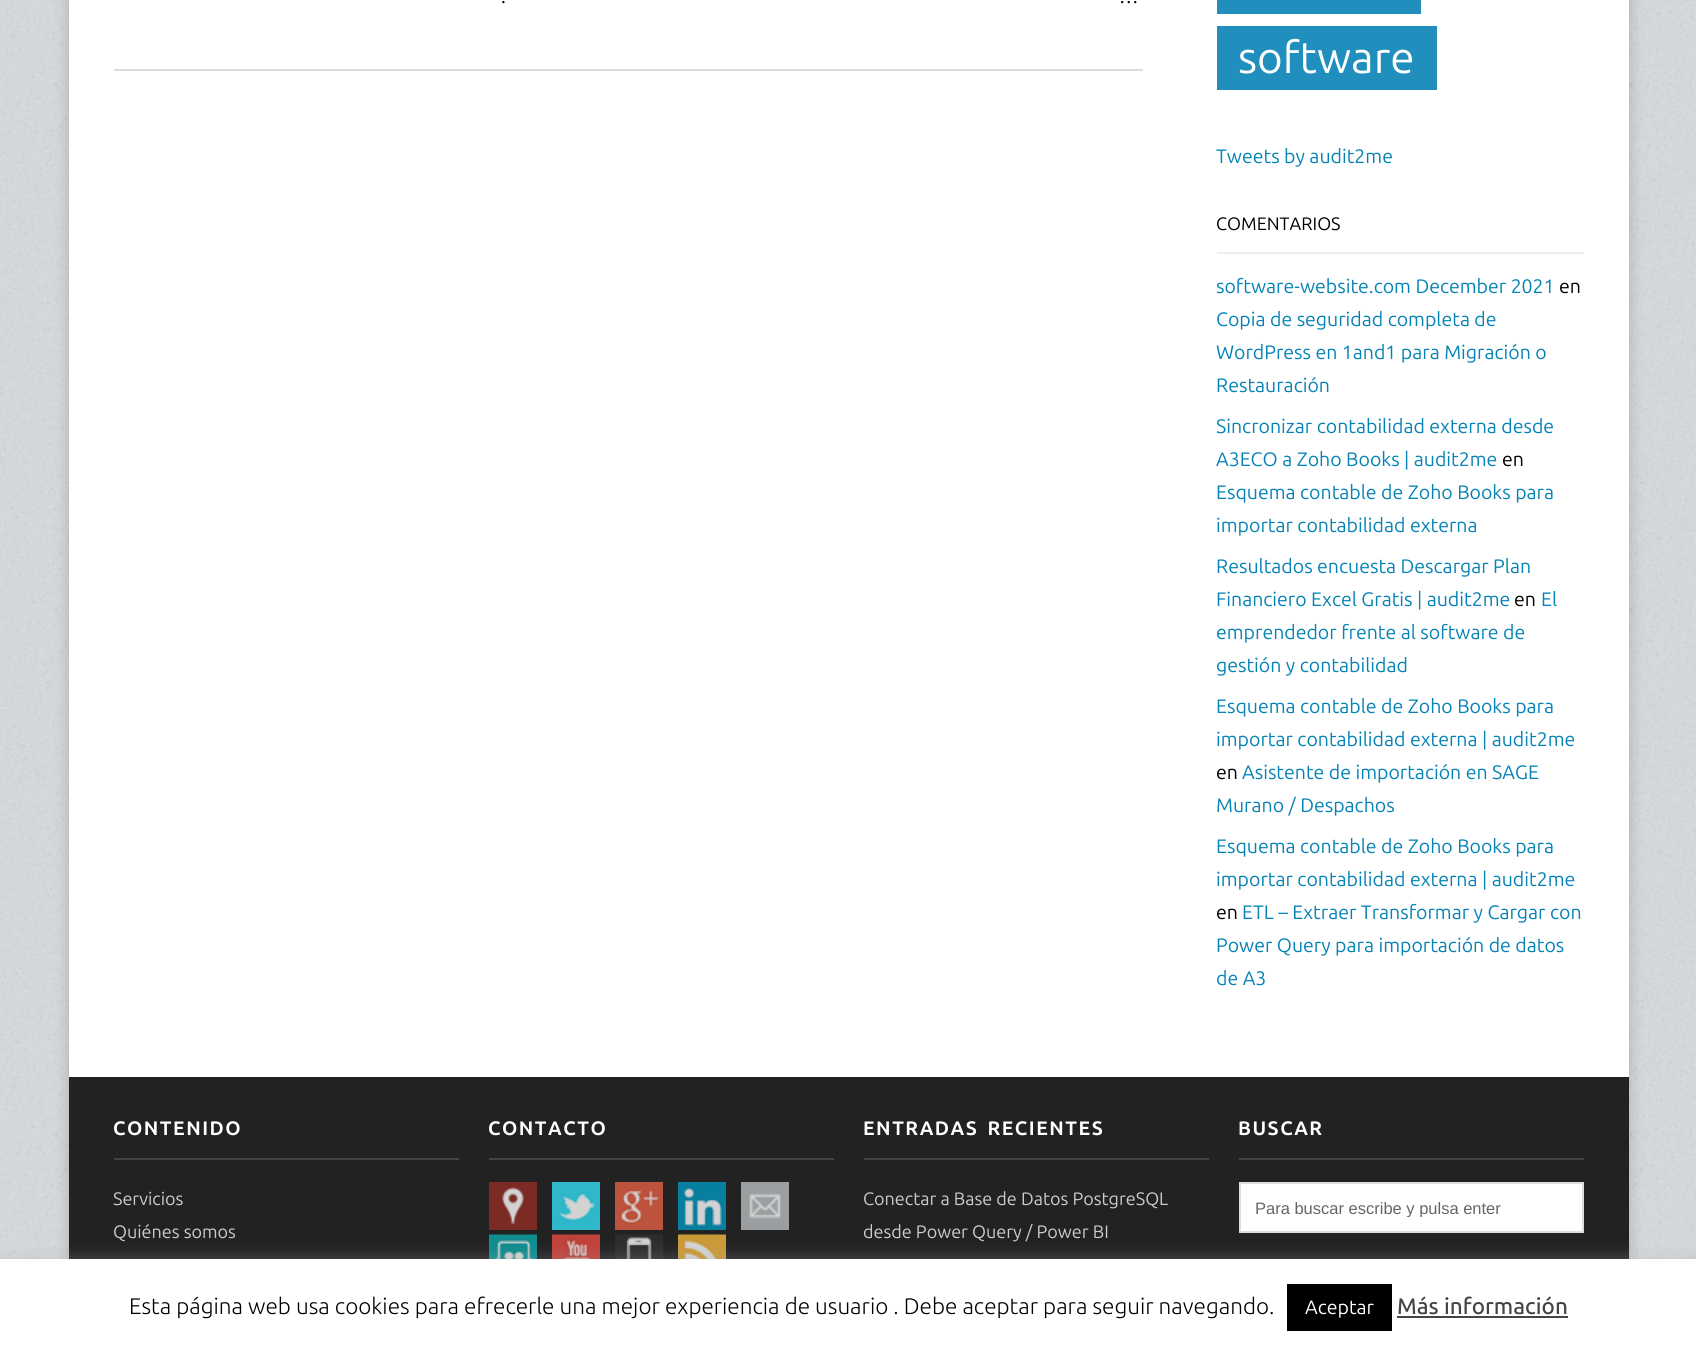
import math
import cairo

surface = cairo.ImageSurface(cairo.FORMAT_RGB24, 1696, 1348)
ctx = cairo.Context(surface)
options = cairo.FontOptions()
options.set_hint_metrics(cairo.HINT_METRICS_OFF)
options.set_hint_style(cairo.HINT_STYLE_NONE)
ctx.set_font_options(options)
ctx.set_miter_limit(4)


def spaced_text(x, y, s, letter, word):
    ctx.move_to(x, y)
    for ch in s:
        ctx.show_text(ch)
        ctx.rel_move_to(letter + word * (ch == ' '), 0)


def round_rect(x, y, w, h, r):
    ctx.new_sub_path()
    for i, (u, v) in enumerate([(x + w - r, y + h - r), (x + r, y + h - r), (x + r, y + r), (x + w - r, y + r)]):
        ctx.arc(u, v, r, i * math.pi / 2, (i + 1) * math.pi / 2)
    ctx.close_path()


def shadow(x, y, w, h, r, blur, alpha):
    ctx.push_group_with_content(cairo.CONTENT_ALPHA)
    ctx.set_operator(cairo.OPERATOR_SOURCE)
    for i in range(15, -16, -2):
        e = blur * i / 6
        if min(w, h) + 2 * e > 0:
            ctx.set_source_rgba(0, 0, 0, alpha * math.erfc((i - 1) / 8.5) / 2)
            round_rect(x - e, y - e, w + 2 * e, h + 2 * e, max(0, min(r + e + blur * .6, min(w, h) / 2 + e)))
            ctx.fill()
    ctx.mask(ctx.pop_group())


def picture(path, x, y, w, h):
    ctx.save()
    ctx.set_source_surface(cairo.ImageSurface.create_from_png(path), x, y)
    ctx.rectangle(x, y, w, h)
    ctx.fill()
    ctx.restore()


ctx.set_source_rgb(1, 1, 1)
ctx.paint()
picture("img1.png", 0, 0, 1696, 1259)
ctx.set_source_rgb(0, 0, 0)
shadow(69, -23, 1560, 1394, 0, 7.5, 0.2)
ctx.set_source_rgb(1, 1, 1)
ctx.rectangle(69, 0, 1560, 1077)
ctx.fill()
ctx.set_source_rgb(0.867, 0.867, 0.867)
ctx.rectangle(114, 69, 1029, 2)
ctx.fill()
ctx.select_font_face("Ubuntu")
ctx.set_font_size(19.5)
ctx.set_source_rgb(0, 0, 0)
ctx.move_to(501, 3)
ctx.show_text(".")
ctx.move_to(1119, 3)
ctx.show_text("…")
ctx.set_source_rgb(0.125, 0.561, 0.741)
ctx.rectangle(1217, 0, 204, 14)
ctx.fill()
ctx.rectangle(1217, 26, 220, 64)
ctx.fill()
ctx.set_font_size(44)
ctx.set_source_rgb(1, 1, 1)
ctx.move_to(1238, 73)
ctx.show_text("software")
ctx.set_font_size(19.5)
ctx.set_source_rgb(0.027, 0.514, 0.714)
ctx.move_to(1216, 163)
ctx.show_text("Tweets by audit2me")
ctx.set_source_rgb(0.933, 0.933, 0.933)
ctx.rectangle(1217, 252, 367, 2)
ctx.fill()
ctx.set_font_size(18)
ctx.set_source_rgb(0, 0, 0)
ctx.move_to(1216, 230)
ctx.show_text("COMENTARIOS")
ctx.set_font_size(19.5)
ctx.set_source_rgb(0.027, 0.514, 0.714)
ctx.move_to(1216, 293)
ctx.show_text("software-website.com December 2021")
ctx.set_source_rgb(0, 0, 0)
ctx.move_to(1559, 293)
ctx.show_text("en")
ctx.set_source_rgb(0.027, 0.514, 0.714)
ctx.move_to(1216, 326)
ctx.show_text("Copia de seguridad completa de")
ctx.move_to(1216, 359)
ctx.show_text("WordPress en 1and1 para Migración o")
ctx.move_to(1216, 392)
ctx.show_text("Restauración")
ctx.move_to(1216, 433)
ctx.show_text("Sincronizar contabilidad externa desde")
ctx.move_to(1216, 466)
ctx.show_text("A3ECO a Zoho Books | audit2me")
ctx.set_source_rgb(0, 0, 0)
ctx.move_to(1502, 466)
ctx.show_text("en")
ctx.set_source_rgb(0.027, 0.514, 0.714)
ctx.move_to(1216, 499)
ctx.show_text("Esquema contable de Zoho Books para")
ctx.move_to(1216, 532)
ctx.show_text("importar contabilidad externa")
ctx.move_to(1216, 573)
ctx.show_text("Resultados encuesta Descargar Plan")
ctx.move_to(1216, 606)
ctx.show_text("Financiero Excel Gratis | audit2me")
ctx.set_source_rgb(0, 0, 0)
ctx.move_to(1514, 606)
ctx.show_text("en")
ctx.set_source_rgb(0.027, 0.514, 0.714)
ctx.move_to(1541, 606)
ctx.show_text("El")
ctx.move_to(1216, 639)
ctx.show_text("emprendedor frente al software de")
ctx.move_to(1216, 672)
ctx.show_text("gestión y contabilidad")
ctx.move_to(1216, 713)
ctx.show_text("Esquema contable de Zoho Books para")
ctx.move_to(1216, 746)
ctx.show_text("importar contabilidad externa | audit2me")
ctx.set_source_rgb(0, 0, 0)
ctx.move_to(1216, 779)
ctx.show_text("en")
ctx.set_source_rgb(0.027, 0.514, 0.714)
ctx.move_to(1242, 779)
ctx.show_text("Asistente de importación en SAGE")
ctx.move_to(1216, 812)
ctx.show_text("Murano / Despachos")
ctx.move_to(1216, 853)
ctx.show_text("Esquema contable de Zoho Books para")
ctx.move_to(1216, 886)
ctx.show_text("importar contabilidad externa | audit2me")
ctx.set_source_rgb(0, 0, 0)
ctx.move_to(1216, 919)
ctx.show_text("en")
ctx.set_source_rgb(0.027, 0.514, 0.714)
ctx.move_to(1242, 919)
ctx.show_text("ETL – Extraer Transformar y Cargar con")
ctx.move_to(1216, 952)
ctx.show_text("Power Query para importación de datos")
ctx.move_to(1216, 985)
ctx.show_text("de A3")
ctx.set_source_rgb(0.133, 0.133, 0.133)
ctx.rectangle(69, 1077, 1560, 182)
ctx.fill()
ctx.set_source_rgb(0.267, 0.267, 0.267)
ctx.rectangle(114, 1158, 345, 2)
ctx.fill()
ctx.select_font_face("Ubuntu", cairo.FONT_SLANT_NORMAL, cairo.FONT_WEIGHT_BOLD)
ctx.set_source_rgb(1, 1, 1)
spaced_text(113, 1135, "CONTENIDO", 1.5, 0)
ctx.select_font_face("Ubuntu")
ctx.set_font_size(18)
ctx.set_source_rgb(0.8, 0.8, 0.8)
ctx.move_to(113, 1205)
ctx.show_text("Servicios")
ctx.move_to(113, 1238)
ctx.show_text("Quiénes somos")
ctx.set_source_rgb(0.267, 0.267, 0.267)
ctx.rectangle(489, 1158, 345, 2)
ctx.fill()
ctx.select_font_face("Ubuntu", cairo.FONT_SLANT_NORMAL, cairo.FONT_WEIGHT_BOLD)
ctx.set_font_size(19.5)
ctx.set_source_rgb(1, 1, 1)
spaced_text(488, 1135, "CONTACTO", 1.5, 0)
picture("img2.png", 489, 1182, 48, 48)
picture("img3.png", 552, 1182, 48, 48)
picture("img4.png", 615, 1182, 48, 48)
picture("img5.png", 678, 1182, 48, 48)
picture("img6.png", 741, 1182, 48, 48)
picture("img7.png", 489, 1234, 48, 25)
picture("img8.png", 552, 1234, 48, 25)
picture("img9.png", 615, 1234, 48, 25)
picture("img10.png", 678, 1234, 48, 25)
ctx.set_source_rgb(0.267, 0.267, 0.267)
ctx.rectangle(864, 1158, 345, 2)
ctx.fill()
ctx.set_source_rgb(1, 1, 1)
spaced_text(863, 1135, "ENTRADAS RECIENTES", 1.5, 3)
ctx.select_font_face("Ubuntu")
ctx.set_font_size(18)
ctx.set_source_rgb(0.8, 0.8, 0.8)
ctx.move_to(863, 1205)
ctx.show_text("Conectar a Base de Datos PostgreSQL")
ctx.move_to(863, 1238)
ctx.show_text("desde Power Query / Power BI")
ctx.set_source_rgb(0.267, 0.267, 0.267)
ctx.rectangle(1239, 1158, 345, 2)
ctx.fill()
ctx.select_font_face("Ubuntu", cairo.FONT_SLANT_NORMAL, cairo.FONT_WEIGHT_BOLD)
ctx.set_font_size(19.5)
ctx.set_source_rgb(1, 1, 1)
spaced_text(1238, 1135, "BUSCAR", 1.5, 0)
ctx.rectangle(1240, 1183, 343, 49)
ctx.fill_preserve()
ctx.set_source_rgb(0.867, 0.867, 0.867)
ctx.stroke()
ctx.save()
ctx.rectangle(1256, 1199, 282, 18)
ctx.clip()
ctx.select_font_face("Liberation Sans")
ctx.set_font_size(16.5)
ctx.set_source_rgb(0.4, 0.4, 0.4)
ctx.move_to(1255, 1214)
ctx.show_text("Para buscar escribe y pulsa enter")
ctx.restore()
ctx.set_source_rgb(0.675, 0.671, 0.671)
shadow(0, 1257, 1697, 90, 0, 7.5, 0.3)
ctx.set_source_rgb(1, 1, 1)
ctx.rectangle(0, 1259, 1696, 89)
ctx.fill()
ctx.select_font_face("Ubuntu Light")
ctx.set_font_size(22.5)
ctx.set_source_rgb(0, 0, 0)
ctx.move_to(129, 1314)
ctx.show_text("Esta página web usa cookies para efrecerle una mejor experiencia de usuario . Debe aceptar para seguir navegando.")
ctx.rectangle(1287, 1284, 105, 47)
ctx.fill()
ctx.select_font_face("Ubuntu")
ctx.set_font_size(19.5)
ctx.set_source_rgb(1, 1, 1)
ctx.move_to(1305, 1314)
ctx.show_text("Aceptar")
ctx.select_font_face("Ubuntu Medium")
ctx.set_font_size(22.5)
ctx.set_source_rgb(0.267, 0.267, 0.267)
ctx.move_to(1397, 1314)
ctx.show_text("Más información")
ctx.rectangle(1397, 1316, 171, 2)
ctx.fill()
surface.write_to_png("page.png")
